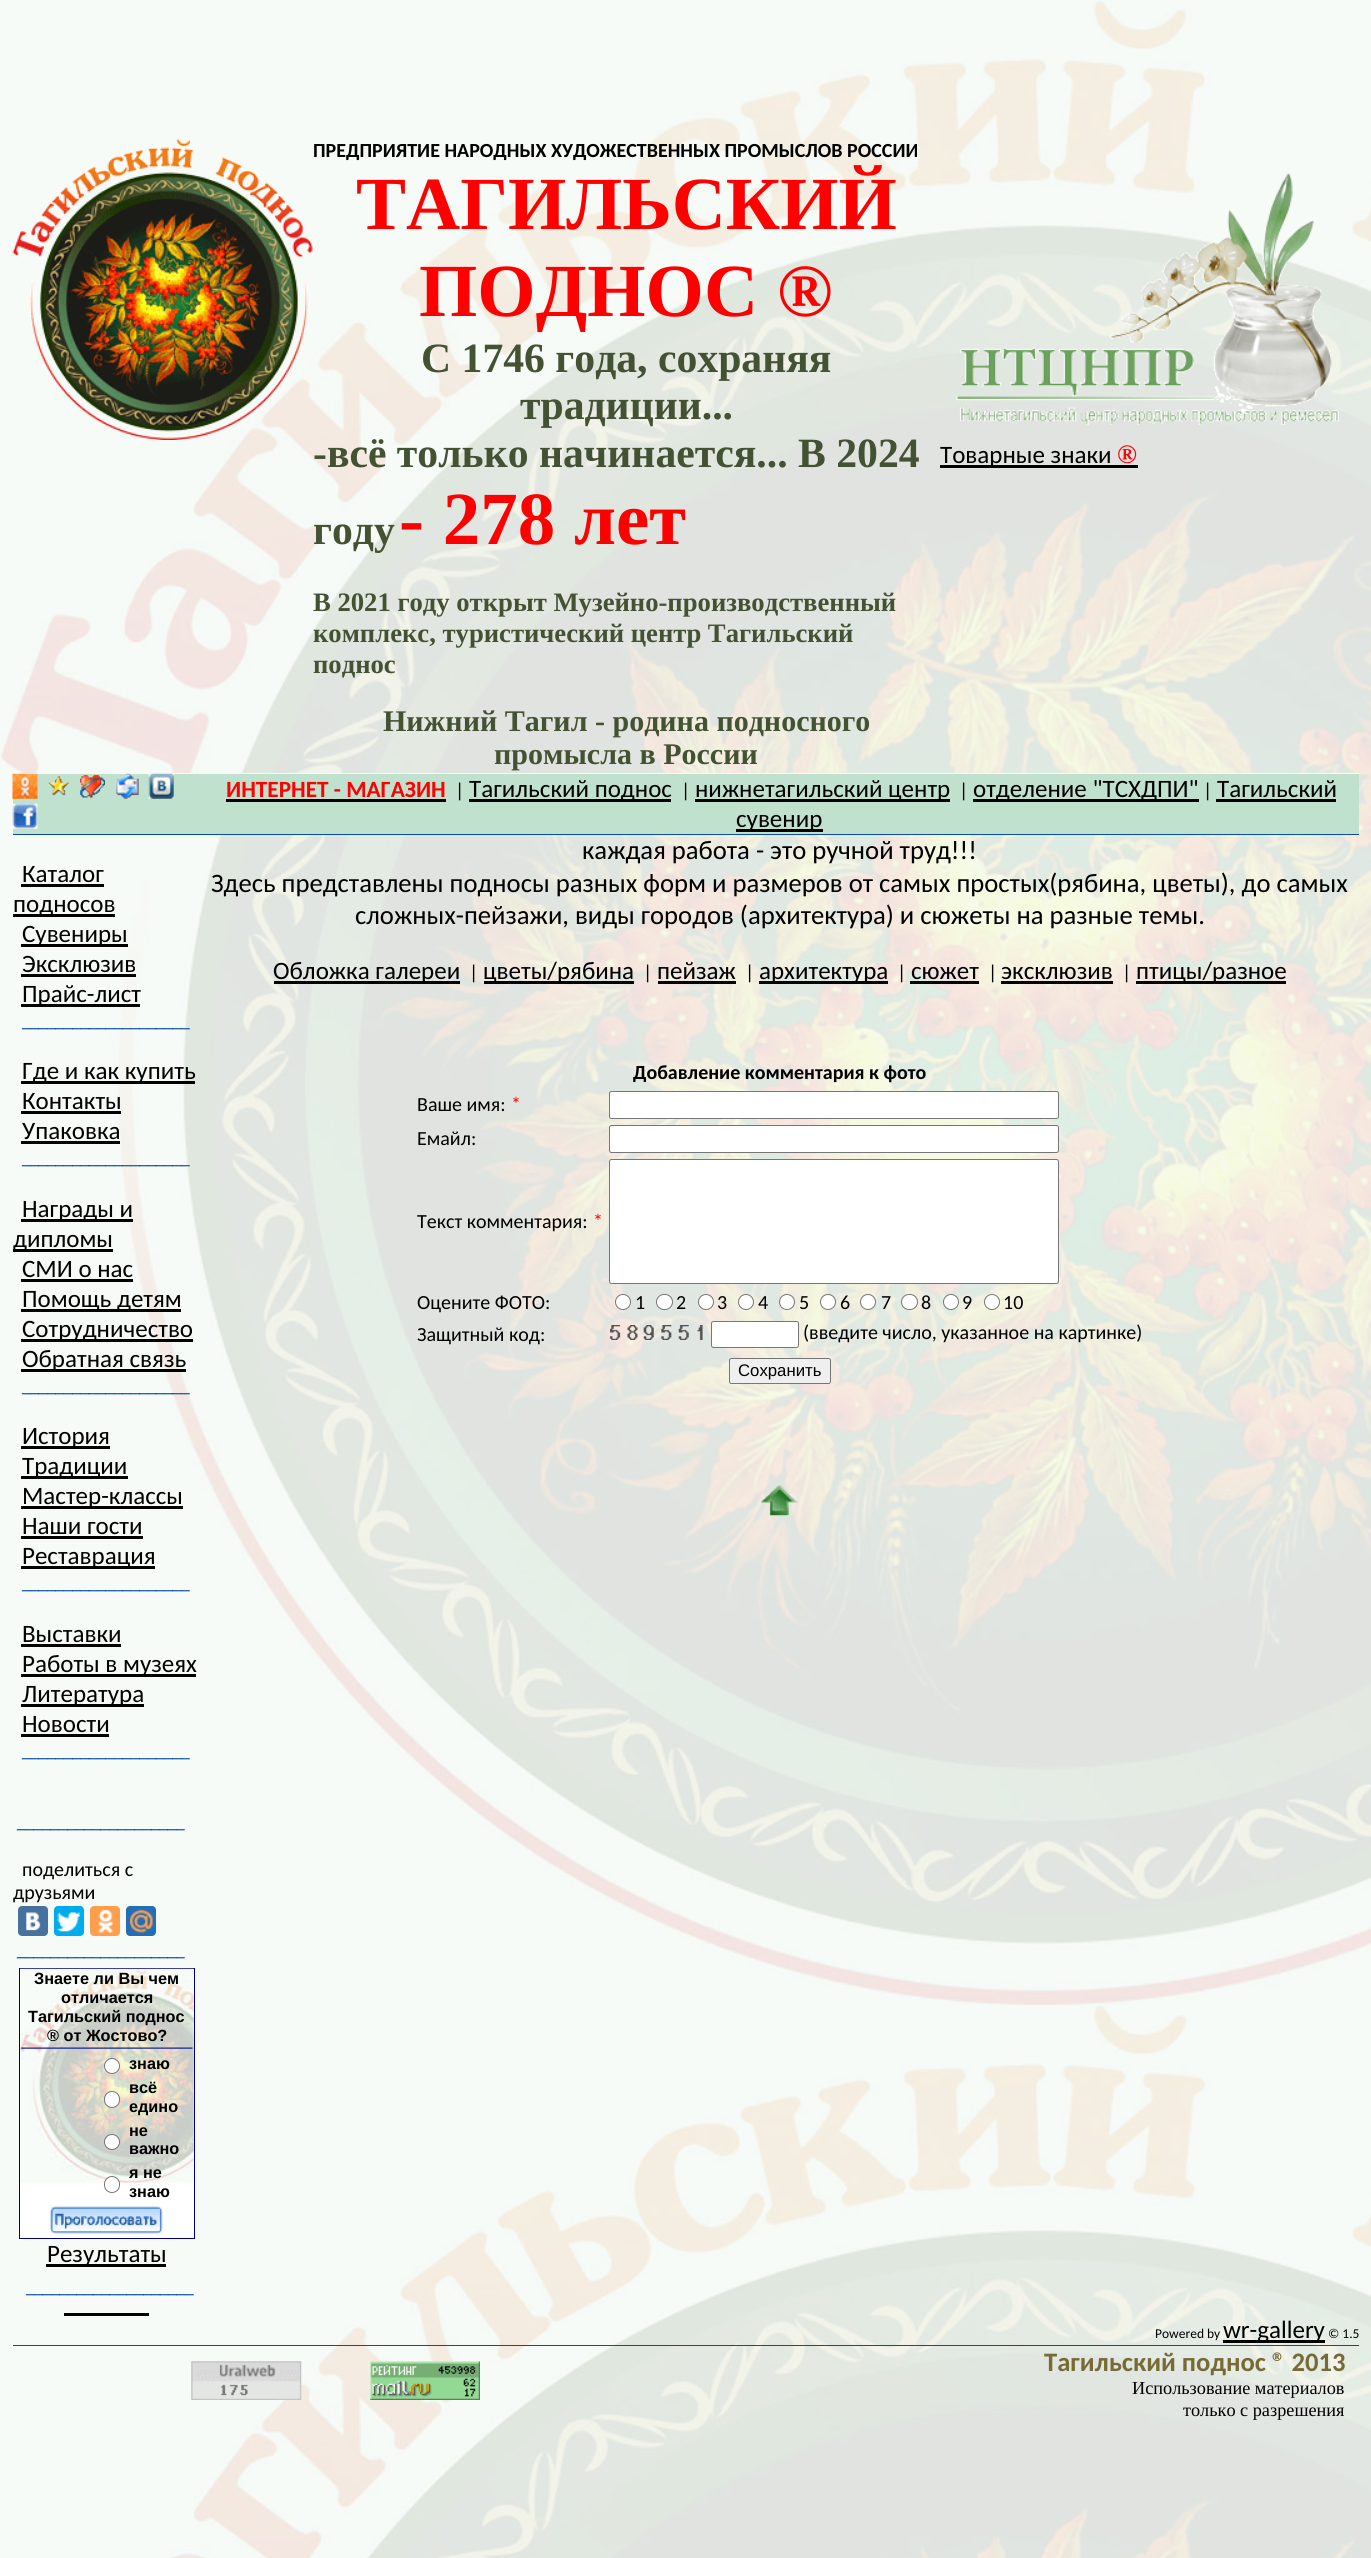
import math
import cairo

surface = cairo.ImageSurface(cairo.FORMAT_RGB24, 1371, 2558)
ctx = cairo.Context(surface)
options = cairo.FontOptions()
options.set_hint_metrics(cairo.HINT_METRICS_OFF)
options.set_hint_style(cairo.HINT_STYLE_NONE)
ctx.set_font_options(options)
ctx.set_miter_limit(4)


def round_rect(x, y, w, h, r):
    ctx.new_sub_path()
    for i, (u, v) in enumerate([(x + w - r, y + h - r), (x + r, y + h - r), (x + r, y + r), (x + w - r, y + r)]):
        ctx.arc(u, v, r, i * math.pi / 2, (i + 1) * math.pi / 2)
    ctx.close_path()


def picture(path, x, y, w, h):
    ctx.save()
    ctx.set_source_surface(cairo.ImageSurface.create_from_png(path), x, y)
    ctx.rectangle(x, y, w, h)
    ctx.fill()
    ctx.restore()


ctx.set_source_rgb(0.961, 0.98, 0.965)
ctx.paint()
picture("img1.png", 1, 1, 1370, 2557)
picture("img2.png", 12, 138, 301, 302)
ctx.select_font_face("Carlito", cairo.FONT_SLANT_NORMAL, cairo.FONT_WEIGHT_BOLD)
ctx.set_font_size(20)
ctx.set_source_rgb(0, 0, 0)
ctx.move_to(313, 157)
ctx.show_text("ПРЕДПРИЯТИЕ НАРОДНЫХ ХУДОЖЕСТВЕННЫХ ПРОМЫСЛОВ РОССИИ")
ctx.select_font_face("Liberation Serif", cairo.FONT_SLANT_NORMAL, cairo.FONT_WEIGHT_BOLD)
ctx.set_font_size(75)
ctx.set_source_rgb(1, 0, 0)
ctx.move_to(356, 229)
ctx.show_text("ТАГИЛЬСКИЙ")
ctx.move_to(419, 316)
ctx.show_text("ПОДНОС ®")
ctx.set_font_size(41.7)
ctx.set_source_rgb(0.263, 0.322, 0.196)
ctx.move_to(421, 372)
ctx.show_text("C 1746 года, сохраняя")
ctx.move_to(520, 419)
ctx.show_text("традиции...")
ctx.move_to(313, 467)
ctx.show_text("-всё только начинается... В 2024")
ctx.set_font_size(75)
ctx.set_source_rgb(1, 0, 0)
ctx.move_to(399, 544)
ctx.show_text("- 278 лет")
ctx.set_font_size(26.65)
ctx.set_source_rgb(0.263, 0.322, 0.196)
ctx.move_to(313, 611)
ctx.show_text("В 2021 году открыт Музейно-производственный")
ctx.move_to(313, 642)
ctx.show_text("комплекс, туристический центр Тагильский")
ctx.move_to(313, 673)
ctx.show_text("поднос")
ctx.set_font_size(30)
ctx.move_to(383, 731)
ctx.show_text("Нижний Тагил - родина подносного")
ctx.move_to(494, 764)
ctx.show_text("промысла в России")
ctx.set_font_size(41.7)
ctx.move_to(313, 544)
ctx.show_text("году")
picture("img3.png", 956, 172, 383, 253)
ctx.set_source_rgb(0, 0, 0)
ctx.rectangle(940, 465, 198, 3)
ctx.fill()
ctx.select_font_face("Carlito")
ctx.set_font_size(25)
ctx.move_to(940, 463)
ctx.show_text("Товарные знаки")
ctx.select_font_face("Liberation Serif", cairo.FONT_SLANT_NORMAL, cairo.FONT_WEIGHT_BOLD)
ctx.set_font_size(26.65)
ctx.set_source_rgb(1, 0, 0)
ctx.move_to(1117, 463)
ctx.show_text("®")
ctx.set_source_rgb(0.961, 0.98, 0.965)
ctx.rectangle(13, 773, 1346, 1)
ctx.fill()
ctx.set_source_rgb(0.753, 0.882, 0.808)
ctx.rectangle(13, 774, 1346, 60)
ctx.fill()
picture("img4.png", 12, 773, 26, 26)
picture("img5.png", 48, 776, 21, 20)
picture("img6.png", 80, 774, 25, 24)
picture("img7.png", 116, 773, 23, 26)
picture("img8.png", 148, 773, 26, 26)
picture("img9.png", 12, 803, 26, 26)
ctx.select_font_face("Carlito", cairo.FONT_SLANT_NORMAL, cairo.FONT_WEIGHT_BOLD)
ctx.set_font_size(23.25)
ctx.set_source_rgb(1, 0, 0)
ctx.move_to(226, 797)
ctx.show_text("ИНТЕРНЕТ - МАГАЗИН")
ctx.set_source_rgb(0, 0, 0)
ctx.rectangle(226, 799, 220, 3)
ctx.fill()
ctx.select_font_face("Carlito")
ctx.set_font_size(20)
ctx.move_to(455, 797)
ctx.show_text("|")
ctx.rectangle(469, 799, 202, 3)
ctx.fill()
ctx.set_font_size(25)
ctx.move_to(469, 797)
ctx.show_text("Тагильский поднос")
ctx.set_font_size(20)
ctx.move_to(681, 797)
ctx.show_text("|")
ctx.rectangle(695, 799, 255, 3)
ctx.fill()
ctx.set_font_size(25)
ctx.move_to(695, 797)
ctx.show_text("нижнетагильский центр")
ctx.set_font_size(20)
ctx.move_to(959, 797)
ctx.show_text("|")
ctx.rectangle(973, 799, 226, 3)
ctx.fill()
ctx.set_font_size(25)
ctx.move_to(973, 797)
ctx.show_text("отделение \"ТСХДПИ\"")
ctx.set_font_size(20)
ctx.move_to(1203, 797)
ctx.show_text("|")
ctx.set_font_size(25)
ctx.move_to(1217, 797)
ctx.show_text("Тагильский")
ctx.rectangle(1216, 799, 120, 3)
ctx.fill()
ctx.rectangle(736, 829, 87, 3)
ctx.fill()
ctx.move_to(736, 827)
ctx.show_text("сувенир")
ctx.set_source_rgb(0.035, 0.306, 0.627)
ctx.rectangle(13, 834, 1346, 1)
ctx.fill()
ctx.set_source_rgb(0, 0, 0)
ctx.move_to(22, 882)
ctx.show_text("Каталог")
ctx.rectangle(21, 884, 83, 3)
ctx.fill()
ctx.rectangle(13, 914, 102, 3)
ctx.fill()
ctx.move_to(13, 912)
ctx.show_text("подносов")
ctx.rectangle(21, 944, 107, 3)
ctx.fill()
ctx.move_to(22, 942)
ctx.show_text("Сувениры")
ctx.move_to(22, 972)
ctx.show_text("Эксклюзив")
ctx.rectangle(21, 974, 115, 3)
ctx.fill()
ctx.rectangle(21, 1004, 119, 3)
ctx.fill()
ctx.move_to(22, 1002)
ctx.show_text("Прайс-лист")
ctx.select_font_face("Liberation Serif", cairo.FONT_SLANT_NORMAL, cairo.FONT_WEIGHT_BOLD)
ctx.set_font_size(16.75)
ctx.set_source_rgb(0.035, 0.306, 0.627)
ctx.move_to(22, 1027)
ctx.show_text("____________________")
ctx.set_source_rgb(0, 0, 0)
ctx.rectangle(21, 1081, 174, 3)
ctx.fill()
ctx.select_font_face("Carlito")
ctx.set_font_size(25)
ctx.move_to(22, 1079)
ctx.show_text("Где и как купить")
ctx.move_to(22, 1109)
ctx.show_text("Контакты")
ctx.rectangle(21, 1111, 100, 3)
ctx.fill()
ctx.move_to(22, 1139)
ctx.show_text("Упаковка")
ctx.rectangle(21, 1141, 99, 3)
ctx.fill()
ctx.select_font_face("Liberation Serif", cairo.FONT_SLANT_NORMAL, cairo.FONT_WEIGHT_BOLD)
ctx.set_font_size(16.75)
ctx.set_source_rgb(0.035, 0.306, 0.627)
ctx.move_to(22, 1164)
ctx.show_text("____________________")
ctx.set_source_rgb(0, 0, 0)
ctx.rectangle(21, 1219, 112, 3)
ctx.fill()
ctx.select_font_face("Carlito")
ctx.set_font_size(25)
ctx.move_to(22, 1217)
ctx.show_text("Награды и")
ctx.rectangle(13, 1249, 100, 3)
ctx.fill()
ctx.move_to(13, 1247)
ctx.show_text("дипломы")
ctx.move_to(22, 1277)
ctx.show_text("СМИ о нас")
ctx.rectangle(21, 1279, 112, 3)
ctx.fill()
ctx.rectangle(21, 1309, 160, 3)
ctx.fill()
ctx.move_to(22, 1307)
ctx.show_text("Помощь детям")
ctx.rectangle(21, 1339, 172, 3)
ctx.fill()
ctx.move_to(22, 1337)
ctx.show_text("Сотрудничество")
ctx.rectangle(21, 1369, 165, 3)
ctx.fill()
ctx.move_to(22, 1367)
ctx.show_text("Обратная связь")
ctx.select_font_face("Liberation Serif", cairo.FONT_SLANT_NORMAL, cairo.FONT_WEIGHT_BOLD)
ctx.set_font_size(16.75)
ctx.set_source_rgb(0.035, 0.306, 0.627)
ctx.move_to(22, 1392)
ctx.show_text("____________________")
ctx.set_source_rgb(0, 0, 0)
ctx.rectangle(21, 1446, 89, 3)
ctx.fill()
ctx.select_font_face("Carlito")
ctx.set_font_size(25)
ctx.move_to(22, 1444)
ctx.show_text("История")
ctx.rectangle(21, 1476, 107, 3)
ctx.fill()
ctx.move_to(22, 1474)
ctx.show_text("Традиции")
ctx.rectangle(21, 1506, 162, 3)
ctx.fill()
ctx.move_to(22, 1504)
ctx.show_text("Мастер-классы")
ctx.move_to(22, 1534)
ctx.show_text("Наши гости")
ctx.rectangle(21, 1536, 122, 3)
ctx.fill()
ctx.rectangle(21, 1566, 134, 3)
ctx.fill()
ctx.move_to(22, 1564)
ctx.show_text("Реставрация")
ctx.select_font_face("Liberation Serif", cairo.FONT_SLANT_NORMAL, cairo.FONT_WEIGHT_BOLD)
ctx.set_font_size(16.75)
ctx.set_source_rgb(0.035, 0.306, 0.627)
ctx.move_to(22, 1589)
ctx.show_text("____________________")
ctx.select_font_face("Carlito")
ctx.set_font_size(25)
ctx.set_source_rgb(0, 0, 0)
ctx.move_to(22, 1642)
ctx.show_text("Выставки")
ctx.rectangle(21, 1644, 100, 3)
ctx.fill()
ctx.rectangle(21, 1674, 175, 3)
ctx.fill()
ctx.move_to(22, 1672)
ctx.show_text("Работы в музеях")
ctx.rectangle(21, 1704, 123, 3)
ctx.fill()
ctx.move_to(22, 1702)
ctx.show_text("Литература")
ctx.move_to(22, 1732)
ctx.show_text("Новости")
ctx.rectangle(21, 1734, 88, 3)
ctx.fill()
ctx.select_font_face("Liberation Serif", cairo.FONT_SLANT_NORMAL, cairo.FONT_WEIGHT_BOLD)
ctx.set_font_size(16.75)
ctx.set_source_rgb(0.035, 0.306, 0.627)
ctx.move_to(22, 1757)
ctx.show_text("____________________")
ctx.move_to(17, 1828)
ctx.show_text("____________________")
ctx.select_font_face("Carlito")
ctx.set_font_size(20)
ctx.set_source_rgb(0, 0, 0)
ctx.move_to(22, 1876)
ctx.show_text("поделиться с")
ctx.move_to(13, 1899)
ctx.show_text("друзьями")
ctx.set_source_rgb(0.282, 0.447, 0.62)
round_rect(18, 1906, 30, 30, 4)
ctx.fill()
picture("img10.png", 26, 1912, 15, 19)
ctx.set_source_rgb(0, 0.675, 0.929)
round_rect(54, 1906, 30, 30, 4)
ctx.fill()
picture("img11.png", 57, 1912, 24, 20)
ctx.set_source_rgb(1, 0.624, 0.302)
round_rect(90, 1906, 30, 30, 4)
ctx.fill()
picture("img12.png", 98, 1909, 15, 24)
ctx.set_source_rgb(0.133, 0.431, 0.718)
round_rect(126, 1906, 30, 30, 4)
ctx.fill()
picture("img13.png", 129, 1909, 24, 24)
ctx.select_font_face("Liberation Serif", cairo.FONT_SLANT_NORMAL, cairo.FONT_WEIGHT_BOLD)
ctx.set_font_size(16.75)
ctx.set_source_rgb(0.035, 0.306, 0.627)
ctx.move_to(17, 1956)
ctx.show_text("____________________")
ctx.set_source_rgb(0, 0, 0.502)
ctx.rectangle(19, 1968, 176, 271)
ctx.fill()
ctx.set_source_rgb(1, 1, 1)
ctx.rectangle(20, 1969, 174, 269)
ctx.fill()
picture("img14.png", 20, 1968, 174, 215)
ctx.select_font_face("Liberation Sans", cairo.FONT_SLANT_NORMAL, cairo.FONT_WEIGHT_BOLD)
ctx.set_font_size(16.25)
ctx.set_source_rgb(0, 0, 0)
ctx.move_to(34, 1984)
ctx.show_text("Знаете ли Вы чем")
ctx.move_to(61, 2003)
ctx.show_text("отличается")
ctx.move_to(28, 2022)
ctx.show_text("Тагильский поднос")
ctx.move_to(47, 2041)
ctx.show_text("® от Жостово?")
picture("img15.png", 21, 2047, 172, 2)
ctx.set_source_rgb(1, 1, 1)
ctx.arc(112, 2066, 7.5, 0, 2 * math.pi)
ctx.fill_preserve()
ctx.set_source_rgb(0.463, 0.463, 0.463)
ctx.set_line_width(1)
ctx.stroke()
ctx.set_source_rgb(0, 0, 0)
ctx.move_to(129, 2069)
ctx.show_text("знаю")
ctx.set_source_rgb(1, 1, 1)
round_rect(104.5, 2091.5, 15, 16, 7.5)
ctx.fill_preserve()
ctx.set_source_rgb(0.463, 0.463, 0.463)
ctx.stroke()
ctx.set_source_rgb(0, 0, 0)
ctx.move_to(129, 2093)
ctx.show_text("всё")
ctx.move_to(129, 2112)
ctx.show_text("едино")
ctx.set_source_rgb(1, 1, 1)
ctx.new_path()
ctx.arc(112, 2142, 7.5, 0, 2 * math.pi)
ctx.fill_preserve()
ctx.set_source_rgb(0.463, 0.463, 0.463)
ctx.stroke()
ctx.set_source_rgb(0, 0, 0)
ctx.move_to(129, 2136)
ctx.show_text("не")
ctx.move_to(129, 2154)
ctx.show_text("важно")
ctx.set_source_rgb(1, 1, 1)
round_rect(104.5, 2176.5, 15, 16, 7.5)
ctx.fill_preserve()
ctx.set_source_rgb(0.463, 0.463, 0.463)
ctx.stroke()
ctx.set_source_rgb(0, 0, 0)
ctx.move_to(129, 2178)
ctx.show_text("я не")
ctx.move_to(129, 2197)
ctx.show_text("знаю")
picture("img16.png", 50, 2206, 113, 28)
ctx.rectangle(46, 2264, 120, 3)
ctx.fill()
ctx.select_font_face("Carlito")
ctx.set_font_size(25)
ctx.move_to(47, 2262)
ctx.show_text("Результаты")
ctx.select_font_face("Liberation Serif", cairo.FONT_SLANT_NORMAL, cairo.FONT_WEIGHT_BOLD)
ctx.set_font_size(16.75)
ctx.set_source_rgb(0.035, 0.306, 0.627)
ctx.move_to(26, 2293)
ctx.show_text("____________________")
ctx.set_source_rgb(0, 0, 0)
ctx.rectangle(64, 2313, 85, 3)
ctx.fill()
ctx.select_font_face("Carlito")
ctx.set_font_size(26.65)
ctx.move_to(582, 859)
ctx.show_text("каждая работа - это ручной труд!!!")
ctx.move_to(211, 892)
ctx.show_text("Здесь представлены подносы разных форм и размеров от самых простых(рябина, цветы), до самых")
ctx.move_to(355, 924)
ctx.show_text("сложных-пейзажи, виды городов (архитектура) и сюжеты на разные темы.")
ctx.rectangle(274, 981, 186, 3)
ctx.fill()
ctx.set_font_size(25)
ctx.move_to(273, 979)
ctx.show_text("Обложка галереи")
ctx.set_font_size(20)
ctx.move_to(469, 979)
ctx.show_text("|")
ctx.rectangle(484, 981, 150, 3)
ctx.fill()
ctx.set_font_size(25)
ctx.move_to(483, 979)
ctx.show_text("цветы/рябина")
ctx.set_font_size(20)
ctx.move_to(643, 979)
ctx.show_text("|")
ctx.set_font_size(25)
ctx.move_to(657, 979)
ctx.show_text("пейзаж")
ctx.rectangle(658, 981, 78, 3)
ctx.fill()
ctx.set_font_size(20)
ctx.move_to(745, 979)
ctx.show_text("|")
ctx.rectangle(759, 981, 129, 3)
ctx.fill()
ctx.set_font_size(25)
ctx.move_to(759, 979)
ctx.show_text("архитектура")
ctx.set_font_size(20)
ctx.move_to(897, 979)
ctx.show_text("|")
ctx.set_font_size(25)
ctx.move_to(911, 979)
ctx.show_text("сюжет")
ctx.rectangle(910, 981, 69, 3)
ctx.fill()
ctx.set_font_size(20)
ctx.move_to(988, 979)
ctx.show_text("|")
ctx.set_font_size(25)
ctx.move_to(1001, 979)
ctx.show_text("эксклюзив")
ctx.rectangle(1001, 981, 112, 3)
ctx.fill()
ctx.set_font_size(20)
ctx.move_to(1122, 979)
ctx.show_text("|")
ctx.rectangle(1136, 981, 150, 3)
ctx.fill()
ctx.set_font_size(25)
ctx.move_to(1136, 979)
ctx.show_text("птицы/разное")
ctx.select_font_face("Carlito", cairo.FONT_SLANT_NORMAL, cairo.FONT_WEIGHT_BOLD)
ctx.set_font_size(20)
ctx.move_to(633, 1079)
ctx.show_text("Добавление комментария к фото")
ctx.select_font_face("Carlito")
ctx.move_to(417, 1111)
ctx.show_text("Ваше имя:")
ctx.set_source_rgb(1, 0, 0)
ctx.move_to(511, 1111)
ctx.show_text("*")
ctx.set_source_rgb(1, 1, 1)
round_rect(609.5, 1091.5, 449, 27, 2)
ctx.fill_preserve()
ctx.set_source_rgb(0.463, 0.463, 0.463)
ctx.stroke()
ctx.set_source_rgb(0, 0, 0)
ctx.move_to(417, 1145)
ctx.show_text("Емайл:")
ctx.set_source_rgb(1, 1, 1)
round_rect(609.5, 1125.5, 449, 27, 2)
ctx.fill_preserve()
ctx.set_source_rgb(0.463, 0.463, 0.463)
ctx.stroke()
ctx.set_source_rgb(0, 0, 0)
ctx.move_to(417, 1228)
ctx.show_text("Текст комментария:")
ctx.set_source_rgb(1, 0, 0)
ctx.move_to(593, 1228)
ctx.show_text("*")
ctx.set_source_rgb(1, 1, 1)
round_rect(609.5, 1159.5, 449, 124, 2)
ctx.fill_preserve()
ctx.set_source_rgb(0.463, 0.463, 0.463)
ctx.stroke()
ctx.set_source_rgb(0, 0, 0)
ctx.move_to(417, 1309)
ctx.show_text("Оцените ФОТО:")
ctx.set_source_rgb(1, 1, 1)
ctx.new_path()
ctx.arc(623, 1302, 7.5, 0, 2 * math.pi)
ctx.fill_preserve()
ctx.set_source_rgb(0.463, 0.463, 0.463)
ctx.stroke()
ctx.set_source_rgb(0, 0, 0)
ctx.move_to(635, 1309)
ctx.show_text("1")
ctx.set_source_rgb(1, 1, 1)
round_rect(656.5, 1294.5, 16, 15, 7.5)
ctx.fill_preserve()
ctx.set_source_rgb(0.463, 0.463, 0.463)
ctx.stroke()
ctx.set_source_rgb(0, 0, 0)
ctx.move_to(676, 1309)
ctx.show_text("2")
ctx.set_source_rgb(1, 1, 1)
ctx.new_path()
ctx.arc(706, 1302, 7.5, 0, 2 * math.pi)
ctx.fill_preserve()
ctx.set_source_rgb(0.463, 0.463, 0.463)
ctx.stroke()
ctx.set_source_rgb(0, 0, 0)
ctx.move_to(717, 1309)
ctx.show_text("3")
ctx.set_source_rgb(1, 1, 1)
ctx.new_path()
ctx.arc(746, 1302, 7.5, 0, 2 * math.pi)
ctx.fill_preserve()
ctx.set_source_rgb(0.463, 0.463, 0.463)
ctx.stroke()
ctx.set_source_rgb(0, 0, 0)
ctx.move_to(758, 1309)
ctx.show_text("4")
ctx.set_source_rgb(1, 1, 1)
ctx.new_path()
ctx.arc(787, 1302, 7.5, 0, 2 * math.pi)
ctx.fill_preserve()
ctx.set_source_rgb(0.463, 0.463, 0.463)
ctx.stroke()
ctx.set_source_rgb(0, 0, 0)
ctx.move_to(799, 1309)
ctx.show_text("5")
ctx.set_source_rgb(1, 1, 1)
ctx.new_path()
ctx.arc(828, 1302, 7.5, 0, 2 * math.pi)
ctx.fill_preserve()
ctx.set_source_rgb(0.463, 0.463, 0.463)
ctx.stroke()
ctx.set_source_rgb(0, 0, 0)
ctx.move_to(840, 1309)
ctx.show_text("6")
ctx.set_source_rgb(1, 1, 1)
ctx.new_path()
ctx.arc(868, 1302, 7.5, 0, 2 * math.pi)
ctx.fill_preserve()
ctx.set_source_rgb(0.463, 0.463, 0.463)
ctx.stroke()
ctx.set_source_rgb(0, 0, 0)
ctx.move_to(881, 1309)
ctx.show_text("7")
ctx.set_source_rgb(1, 1, 1)
round_rect(901.5, 1294.5, 16, 15, 7.5)
ctx.fill_preserve()
ctx.set_source_rgb(0.463, 0.463, 0.463)
ctx.stroke()
ctx.set_source_rgb(0, 0, 0)
ctx.move_to(921, 1309)
ctx.show_text("8")
ctx.set_source_rgb(1, 1, 1)
ctx.new_path()
ctx.arc(951, 1302, 7.5, 0, 2 * math.pi)
ctx.fill_preserve()
ctx.set_source_rgb(0.463, 0.463, 0.463)
ctx.stroke()
ctx.set_source_rgb(0, 0, 0)
ctx.move_to(962, 1309)
ctx.show_text("9")
ctx.set_source_rgb(1, 1, 1)
ctx.new_path()
ctx.arc(992, 1302, 7.5, 0, 2 * math.pi)
ctx.fill_preserve()
ctx.set_source_rgb(0.463, 0.463, 0.463)
ctx.stroke()
ctx.set_source_rgb(0, 0, 0)
ctx.move_to(1003, 1309)
ctx.show_text("10")
ctx.move_to(417, 1341)
ctx.show_text("Защитный код:")
picture("img17.png", 609, 1325, 12, 15)
picture("img18.png", 627, 1325, 11, 15)
picture("img19.png", 643, 1325, 11, 15)
picture("img20.png", 661, 1325, 11, 15)
picture("img21.png", 678, 1325, 11, 15)
picture("img22.png", 697, 1325, 6, 15)
ctx.set_source_rgb(1, 1, 1)
round_rect(711.5, 1321.5, 87, 26, 2)
ctx.fill_preserve()
ctx.set_source_rgb(0.463, 0.463, 0.463)
ctx.stroke()
ctx.set_source_rgb(0, 0, 0)
ctx.move_to(803, 1339)
ctx.show_text("(введите число, указанное на картинке)")
ctx.set_source_rgb(0.937, 0.937, 0.937)
round_rect(729.5, 1358.5, 101, 25, 2)
ctx.fill_preserve()
ctx.set_source_rgb(0.463, 0.463, 0.463)
ctx.stroke()
ctx.select_font_face("Liberation Sans")
ctx.set_font_size(16.75)
ctx.set_source_rgb(0, 0, 0)
ctx.move_to(738, 1376)
ctx.show_text("Сохранить")
picture("img23.png", 761, 1484, 37, 33)
ctx.select_font_face("Carlito")
ctx.set_font_size(13.5)
ctx.move_to(1155, 2338)
ctx.show_text("Powered by")
ctx.rectangle(1223, 2340, 102, 3)
ctx.fill()
ctx.set_font_size(25)
ctx.move_to(1223, 2338)
ctx.show_text("wr-gallery")
ctx.set_font_size(13.5)
ctx.move_to(1328, 2338)
ctx.show_text("© 1.5")
ctx.set_source_rgb(0.035, 0.306, 0.627)
ctx.rectangle(13, 2345, 1346, 1)
ctx.fill()
picture("img24.png", 191, 2361, 111, 39)
picture("img25.png", 370, 2361, 110, 39)
ctx.select_font_face("Carlito", cairo.FONT_SLANT_NORMAL, cairo.FONT_WEIGHT_BOLD)
ctx.set_font_size(26.65)
ctx.set_source_rgb(0.463, 0.42, 0.212)
ctx.move_to(1044, 2371)
ctx.show_text("Тагильский поднос ® 2013")
ctx.select_font_face("Liberation Serif")
ctx.set_font_size(18.25)
ctx.set_source_rgb(0, 0, 0)
ctx.move_to(1132, 2394)
ctx.show_text("Использование материалов")
ctx.move_to(1183, 2416)
ctx.show_text("только с разрешения")
surface.write_to_png("page.png")
